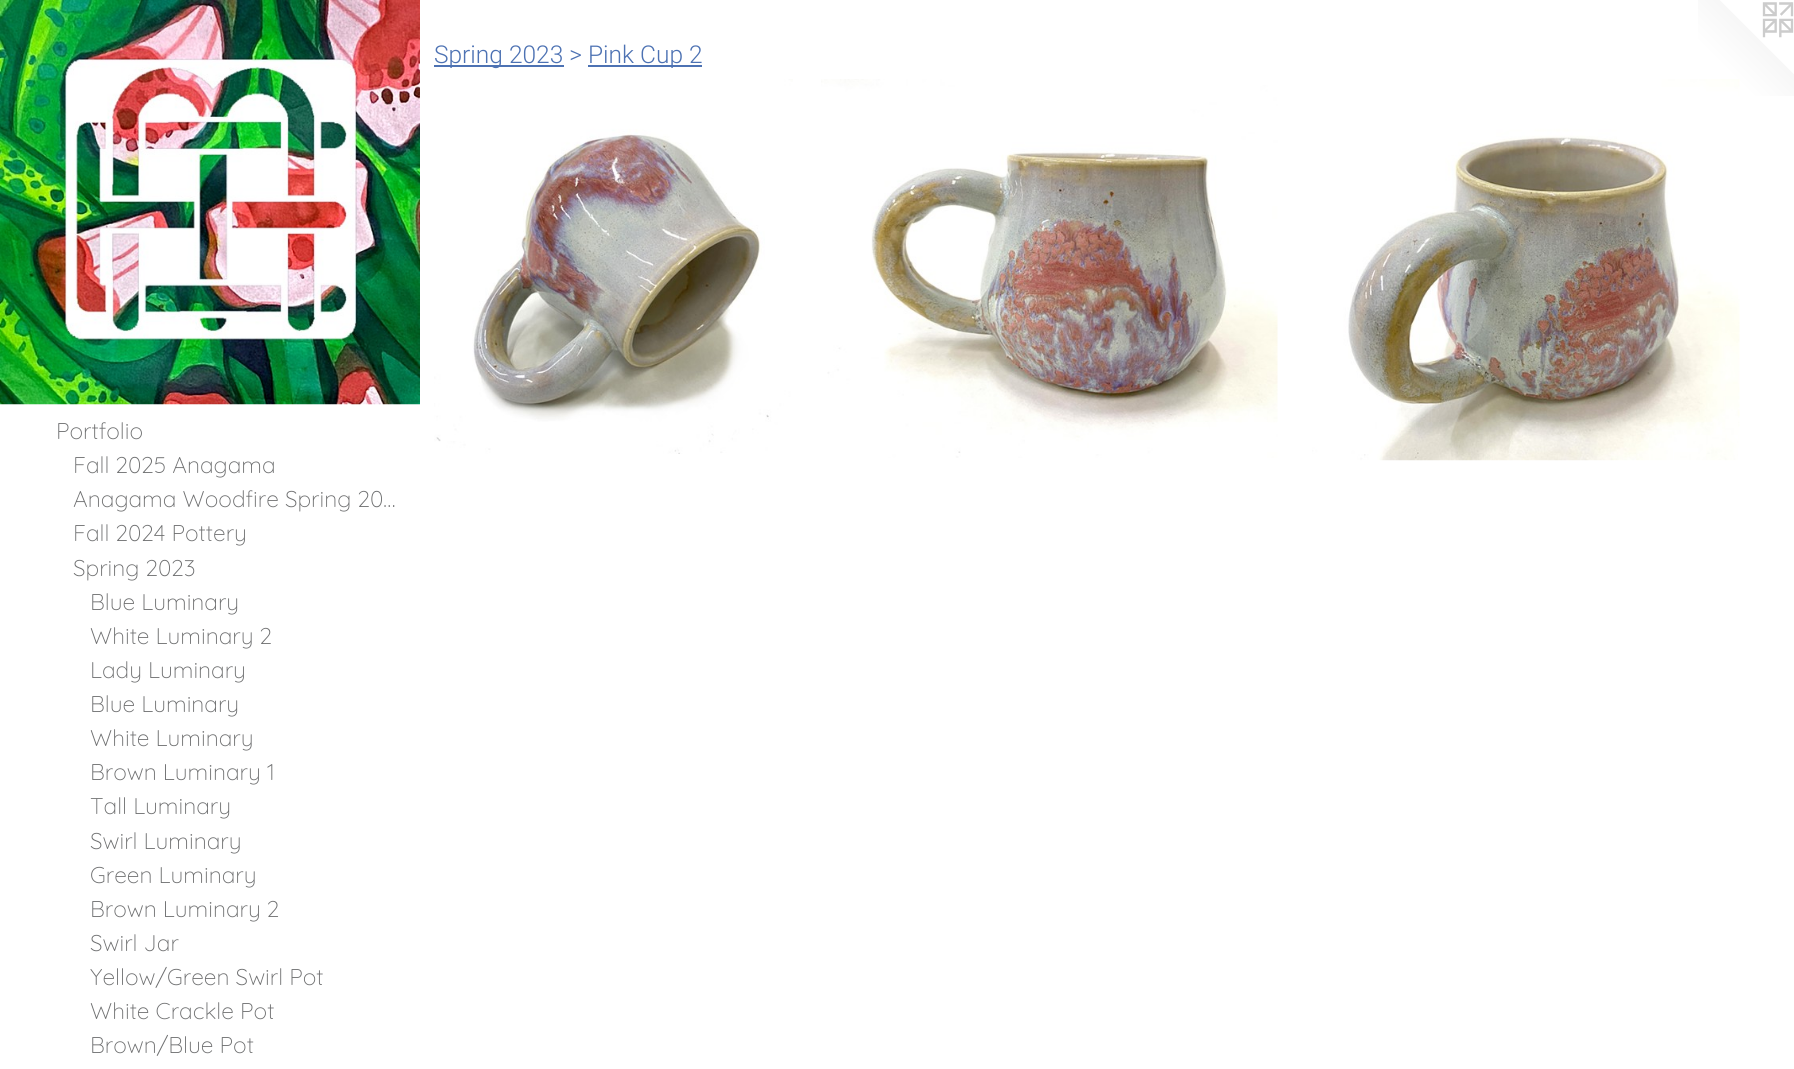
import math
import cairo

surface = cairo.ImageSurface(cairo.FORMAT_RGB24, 1794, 1069)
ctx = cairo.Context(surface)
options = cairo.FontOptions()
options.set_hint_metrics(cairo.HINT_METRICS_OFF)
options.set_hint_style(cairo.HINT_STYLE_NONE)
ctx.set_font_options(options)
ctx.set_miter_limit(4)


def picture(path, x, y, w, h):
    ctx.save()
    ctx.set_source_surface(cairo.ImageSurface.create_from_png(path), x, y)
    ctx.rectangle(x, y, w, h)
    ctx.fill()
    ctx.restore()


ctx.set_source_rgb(1, 1, 1)
ctx.paint()
ctx.set_source_rgb(0.302, 0.447, 0.702)
ctx.rectangle(434, 65, 130, 2)
ctx.fill()
ctx.select_font_face("Roboto Light")
ctx.set_font_size(24.5)
ctx.move_to(434, 63)
ctx.show_text("Spring 2023 >")
ctx.rectangle(588, 65, 114, 2)
ctx.fill()
ctx.move_to(588, 63)
ctx.show_text("Pink Cup 2")
picture("img1.png", 434, 79, 359, 375)
picture("img2.png", 821, 79, 457, 379)
picture("img4.png", 1698, 0, 96, 96)
picture("img3.png", 1312, 79, 428, 382)
picture("img5.png", 0, 0, 420, 405)
ctx.select_font_face("Quicksand Light")
ctx.set_font_size(22.75)
ctx.set_source_rgb(0.435, 0.439, 0.443)
ctx.move_to(56, 439)
ctx.show_text("Portfolio")
ctx.move_to(73, 473)
ctx.show_text("Fall 2025 Anagama")
ctx.move_to(73, 507)
ctx.show_text("Anagama Woodfire Spring 20…")
ctx.move_to(73, 541)
ctx.show_text("Fall 2024 Pottery")
ctx.move_to(73, 576)
ctx.show_text("Spring 2023")
ctx.move_to(90, 610)
ctx.show_text("Blue Luminary")
ctx.move_to(90, 644)
ctx.show_text("White Luminary 2")
ctx.move_to(90, 678)
ctx.show_text("Lady Luminary")
ctx.move_to(90, 712)
ctx.show_text("Blue Luminary")
ctx.move_to(90, 746)
ctx.show_text("White Luminary")
ctx.move_to(90, 780)
ctx.show_text("Brown Luminary 1")
ctx.move_to(90, 814)
ctx.show_text("Tall Luminary")
ctx.move_to(90, 849)
ctx.show_text("Swirl Luminary")
ctx.move_to(90, 883)
ctx.show_text("Green Luminary")
ctx.move_to(90, 917)
ctx.show_text("Brown Luminary 2")
ctx.move_to(90, 951)
ctx.show_text("Swirl Jar")
ctx.move_to(90, 985)
ctx.show_text("Yellow/Green Swirl Pot")
ctx.move_to(90, 1019)
ctx.show_text("White Crackle Pot")
ctx.move_to(90, 1053)
ctx.show_text("Brown/Blue Pot")
surface.write_to_png("page.png")
